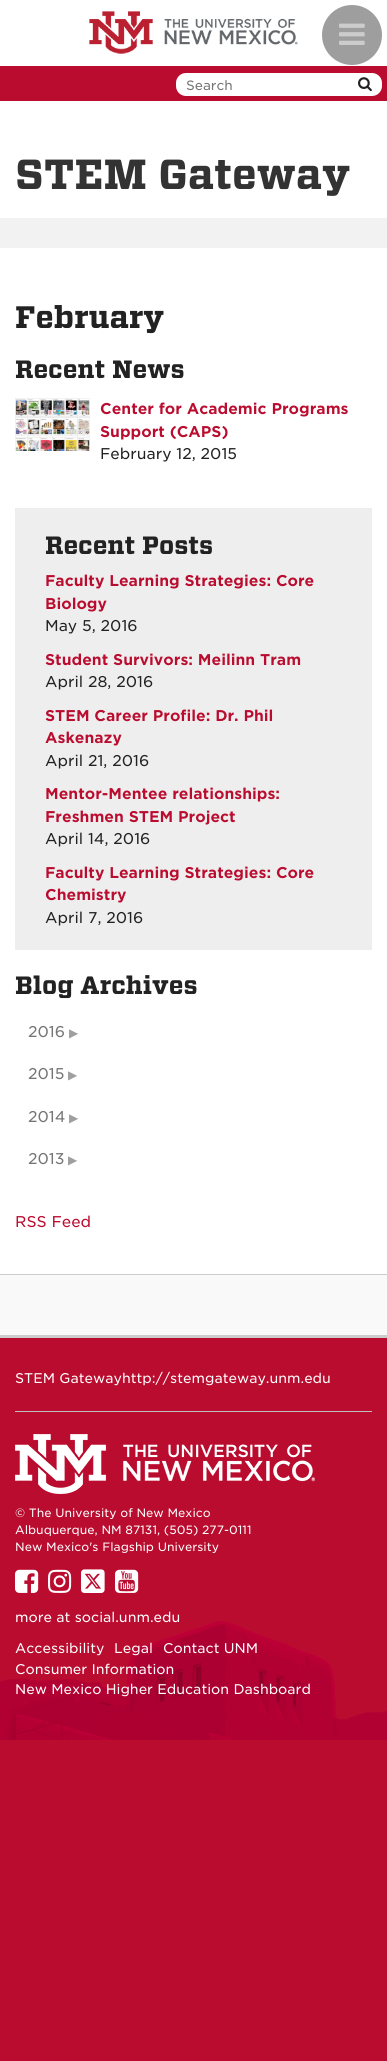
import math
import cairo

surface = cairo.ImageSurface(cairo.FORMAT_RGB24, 387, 2061)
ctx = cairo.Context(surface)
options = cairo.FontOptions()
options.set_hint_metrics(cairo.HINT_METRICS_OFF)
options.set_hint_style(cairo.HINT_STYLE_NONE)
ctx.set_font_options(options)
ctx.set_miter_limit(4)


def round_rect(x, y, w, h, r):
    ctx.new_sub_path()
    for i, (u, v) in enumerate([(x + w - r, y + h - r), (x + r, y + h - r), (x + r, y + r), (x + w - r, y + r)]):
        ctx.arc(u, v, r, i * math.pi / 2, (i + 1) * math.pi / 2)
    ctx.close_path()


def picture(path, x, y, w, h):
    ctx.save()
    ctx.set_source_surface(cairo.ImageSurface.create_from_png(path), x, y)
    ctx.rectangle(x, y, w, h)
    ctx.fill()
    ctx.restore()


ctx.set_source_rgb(0.729, 0.047, 0.184)
ctx.paint()
ctx.set_source_rgb(1, 1, 1)
ctx.rectangle(0, 0, 387, 66)
ctx.fill()
ctx.set_source_rgb(0.62, 0.62, 0.62)
ctx.arc(352, 35, 30, 0, 2 * math.pi)
ctx.fill()
picture("img1.png", 339, 23, 26, 22)
ctx.set_source_rgb(1, 1, 1)
ctx.rectangle(0, 101, 387, 1173)
ctx.fill()
picture("img2.png", 89, 11, 209, 43)
round_rect(176, 73, 206, 23, 10)
ctx.fill()
ctx.select_font_face("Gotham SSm")
ctx.set_font_size(13)
ctx.set_source_rgb(0.459, 0.459, 0.459)
ctx.move_to(186, 90)
ctx.show_text("Search")
picture("img3.png", 358, 77, 14, 15)
ctx.select_font_face("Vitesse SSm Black")
ctx.set_font_size(42)
ctx.set_source_rgb(0.2, 0.2, 0.2)
ctx.move_to(15, 189)
ctx.show_text("STEM Gateway")
ctx.set_source_rgb(0.949, 0.949, 0.949)
ctx.rectangle(0, 218, 387, 30)
ctx.fill()
ctx.set_font_size(31)
ctx.set_source_rgb(0.133, 0.133, 0.133)
ctx.move_to(15, 328)
ctx.show_text("February")
ctx.set_font_size(25)
ctx.move_to(15, 378)
ctx.show_text("Recent News")
picture("img4.png", 15, 398, 75, 53)
ctx.select_font_face("Gotham SSm", cairo.FONT_SLANT_NORMAL, cairo.FONT_WEIGHT_BOLD)
ctx.set_font_size(15)
ctx.set_source_rgb(0.729, 0.047, 0.184)
ctx.move_to(100, 414)
ctx.show_text("Center for Academic Programs")
ctx.move_to(100, 437)
ctx.show_text("Support (CAPS)")
ctx.select_font_face("Gotham SSm")
ctx.set_source_rgb(0.133, 0.133, 0.133)
ctx.move_to(100, 459)
ctx.show_text("February 12, 2015")
ctx.set_source_rgb(0.933, 0.933, 0.933)
ctx.rectangle(15, 508, 357, 442)
ctx.fill()
ctx.select_font_face("Vitesse SSm Black")
ctx.set_font_size(25)
ctx.set_source_rgb(0.133, 0.133, 0.133)
ctx.move_to(45, 554)
ctx.show_text("Recent Posts")
ctx.select_font_face("Gotham SSm", cairo.FONT_SLANT_NORMAL, cairo.FONT_WEIGHT_BOLD)
ctx.set_font_size(15)
ctx.set_source_rgb(0.729, 0.047, 0.184)
ctx.move_to(45, 586)
ctx.show_text("Faculty Learning Strategies: Core")
ctx.move_to(45, 609)
ctx.show_text("Biology")
ctx.select_font_face("Gotham SSm")
ctx.set_source_rgb(0.133, 0.133, 0.133)
ctx.move_to(45, 631)
ctx.show_text("May 5, 2016")
ctx.select_font_face("Gotham SSm", cairo.FONT_SLANT_NORMAL, cairo.FONT_WEIGHT_BOLD)
ctx.set_source_rgb(0.729, 0.047, 0.184)
ctx.move_to(45, 665)
ctx.show_text("Student Survivors: Meilinn Tram")
ctx.select_font_face("Gotham SSm")
ctx.set_source_rgb(0.133, 0.133, 0.133)
ctx.move_to(45, 687)
ctx.show_text("April 28, 2016")
ctx.select_font_face("Gotham SSm", cairo.FONT_SLANT_NORMAL, cairo.FONT_WEIGHT_BOLD)
ctx.set_source_rgb(0.729, 0.047, 0.184)
ctx.move_to(45, 721)
ctx.show_text("STEM Career Profile: Dr. Phil")
ctx.move_to(45, 743)
ctx.show_text("Askenazy")
ctx.select_font_face("Gotham SSm")
ctx.set_source_rgb(0.133, 0.133, 0.133)
ctx.move_to(45, 766)
ctx.show_text("April 21, 2016")
ctx.select_font_face("Gotham SSm", cairo.FONT_SLANT_NORMAL, cairo.FONT_WEIGHT_BOLD)
ctx.set_source_rgb(0.729, 0.047, 0.184)
ctx.move_to(45, 799)
ctx.show_text("Mentor-Mentee relationships:")
ctx.move_to(45, 822)
ctx.show_text("Freshmen STEM Project")
ctx.select_font_face("Gotham SSm")
ctx.set_source_rgb(0.133, 0.133, 0.133)
ctx.move_to(45, 844)
ctx.show_text("April 14, 2016")
ctx.select_font_face("Gotham SSm", cairo.FONT_SLANT_NORMAL, cairo.FONT_WEIGHT_BOLD)
ctx.set_source_rgb(0.729, 0.047, 0.184)
ctx.move_to(45, 878)
ctx.show_text("Faculty Learning Strategies: Core")
ctx.move_to(45, 900)
ctx.show_text("Chemistry")
ctx.select_font_face("Gotham SSm")
ctx.set_source_rgb(0.133, 0.133, 0.133)
ctx.move_to(45, 923)
ctx.show_text("April 7, 2016")
ctx.select_font_face("Vitesse SSm Black")
ctx.set_font_size(25)
ctx.move_to(15, 994)
ctx.show_text("Blog Archives")
ctx.select_font_face("Gotham SSm")
ctx.set_font_size(15)
ctx.set_source_rgb(0.459, 0.459, 0.459)
ctx.move_to(28, 1037)
ctx.show_text("2016")
ctx.select_font_face("DejaVu Sans")
ctx.set_font_size(12)
ctx.set_source_rgb(0.624, 0.624, 0.624)
ctx.move_to(69, 1037)
ctx.show_text("▶")
ctx.select_font_face("Gotham SSm")
ctx.set_font_size(15)
ctx.set_source_rgb(0.459, 0.459, 0.459)
ctx.move_to(28, 1079)
ctx.show_text("2015")
ctx.select_font_face("DejaVu Sans")
ctx.set_font_size(12)
ctx.set_source_rgb(0.624, 0.624, 0.624)
ctx.move_to(68, 1079)
ctx.show_text("▶")
ctx.select_font_face("Gotham SSm")
ctx.set_font_size(15)
ctx.set_source_rgb(0.459, 0.459, 0.459)
ctx.move_to(28, 1122)
ctx.show_text("2014")
ctx.select_font_face("DejaVu Sans")
ctx.set_font_size(12)
ctx.set_source_rgb(0.624, 0.624, 0.624)
ctx.move_to(69, 1122)
ctx.show_text("▶")
ctx.select_font_face("Gotham SSm")
ctx.set_font_size(15)
ctx.set_source_rgb(0.459, 0.459, 0.459)
ctx.move_to(28, 1164)
ctx.show_text("2013")
ctx.select_font_face("DejaVu Sans")
ctx.set_font_size(12)
ctx.set_source_rgb(0.624, 0.624, 0.624)
ctx.move_to(68, 1164)
ctx.show_text("▶")
ctx.select_font_face("Gotham SSm")
ctx.set_font_size(15)
ctx.set_source_rgb(0.729, 0.047, 0.184)
ctx.move_to(15, 1227)
ctx.show_text("RSS Feed")
ctx.set_source_rgb(0.976, 0.976, 0.976)
ctx.rectangle(0, 1275, 387, 60)
ctx.fill()
ctx.set_source_rgb(0.8, 0.8, 0.8)
ctx.rectangle(0, 1274, 387, 1)
ctx.fill()
picture("img5.png", 0, 1621, 387, 119)
ctx.rectangle(0, 1335, 387, 3)
ctx.fill()
ctx.set_font_size(13.5)
ctx.set_source_rgb(1, 1, 1)
ctx.move_to(15, 1383)
ctx.show_text("STEM Gatewayhttp://stemgateway.unm.edu")
ctx.set_source_rgb(0.753, 0.753, 0.753)
ctx.rectangle(15, 1411, 357, 1)
ctx.fill()
picture("img6.png", 15, 1434, 300, 60)
ctx.set_font_size(11.6)
ctx.set_source_rgb(1, 1, 1)
ctx.move_to(15, 1517)
ctx.show_text("© The University of New Mexico")
ctx.move_to(15, 1534)
ctx.show_text("Albuquerque, NM 87131, (505) 277-0111")
ctx.move_to(15, 1551)
ctx.show_text("New Mexico's Flagship University")
picture("img7.png", 15, 1569, 24, 24)
picture("img8.png", 48, 1569, 24, 24)
picture("img9.png", 81, 1569, 24, 24)
picture("img10.png", 115, 1569, 24, 24)
ctx.set_font_size(13.5)
ctx.move_to(15, 1622)
ctx.show_text("more at social.unm.edu")
ctx.move_to(15, 1653)
ctx.show_text("Accessibility")
ctx.move_to(114, 1653)
ctx.show_text("Legal")
ctx.move_to(163, 1653)
ctx.show_text("Contact UNM")
ctx.move_to(15, 1674)
ctx.show_text("Consumer Information")
ctx.move_to(15, 1694)
ctx.show_text("New Mexico Higher Education Dashboard")
surface.write_to_png("page.png")
